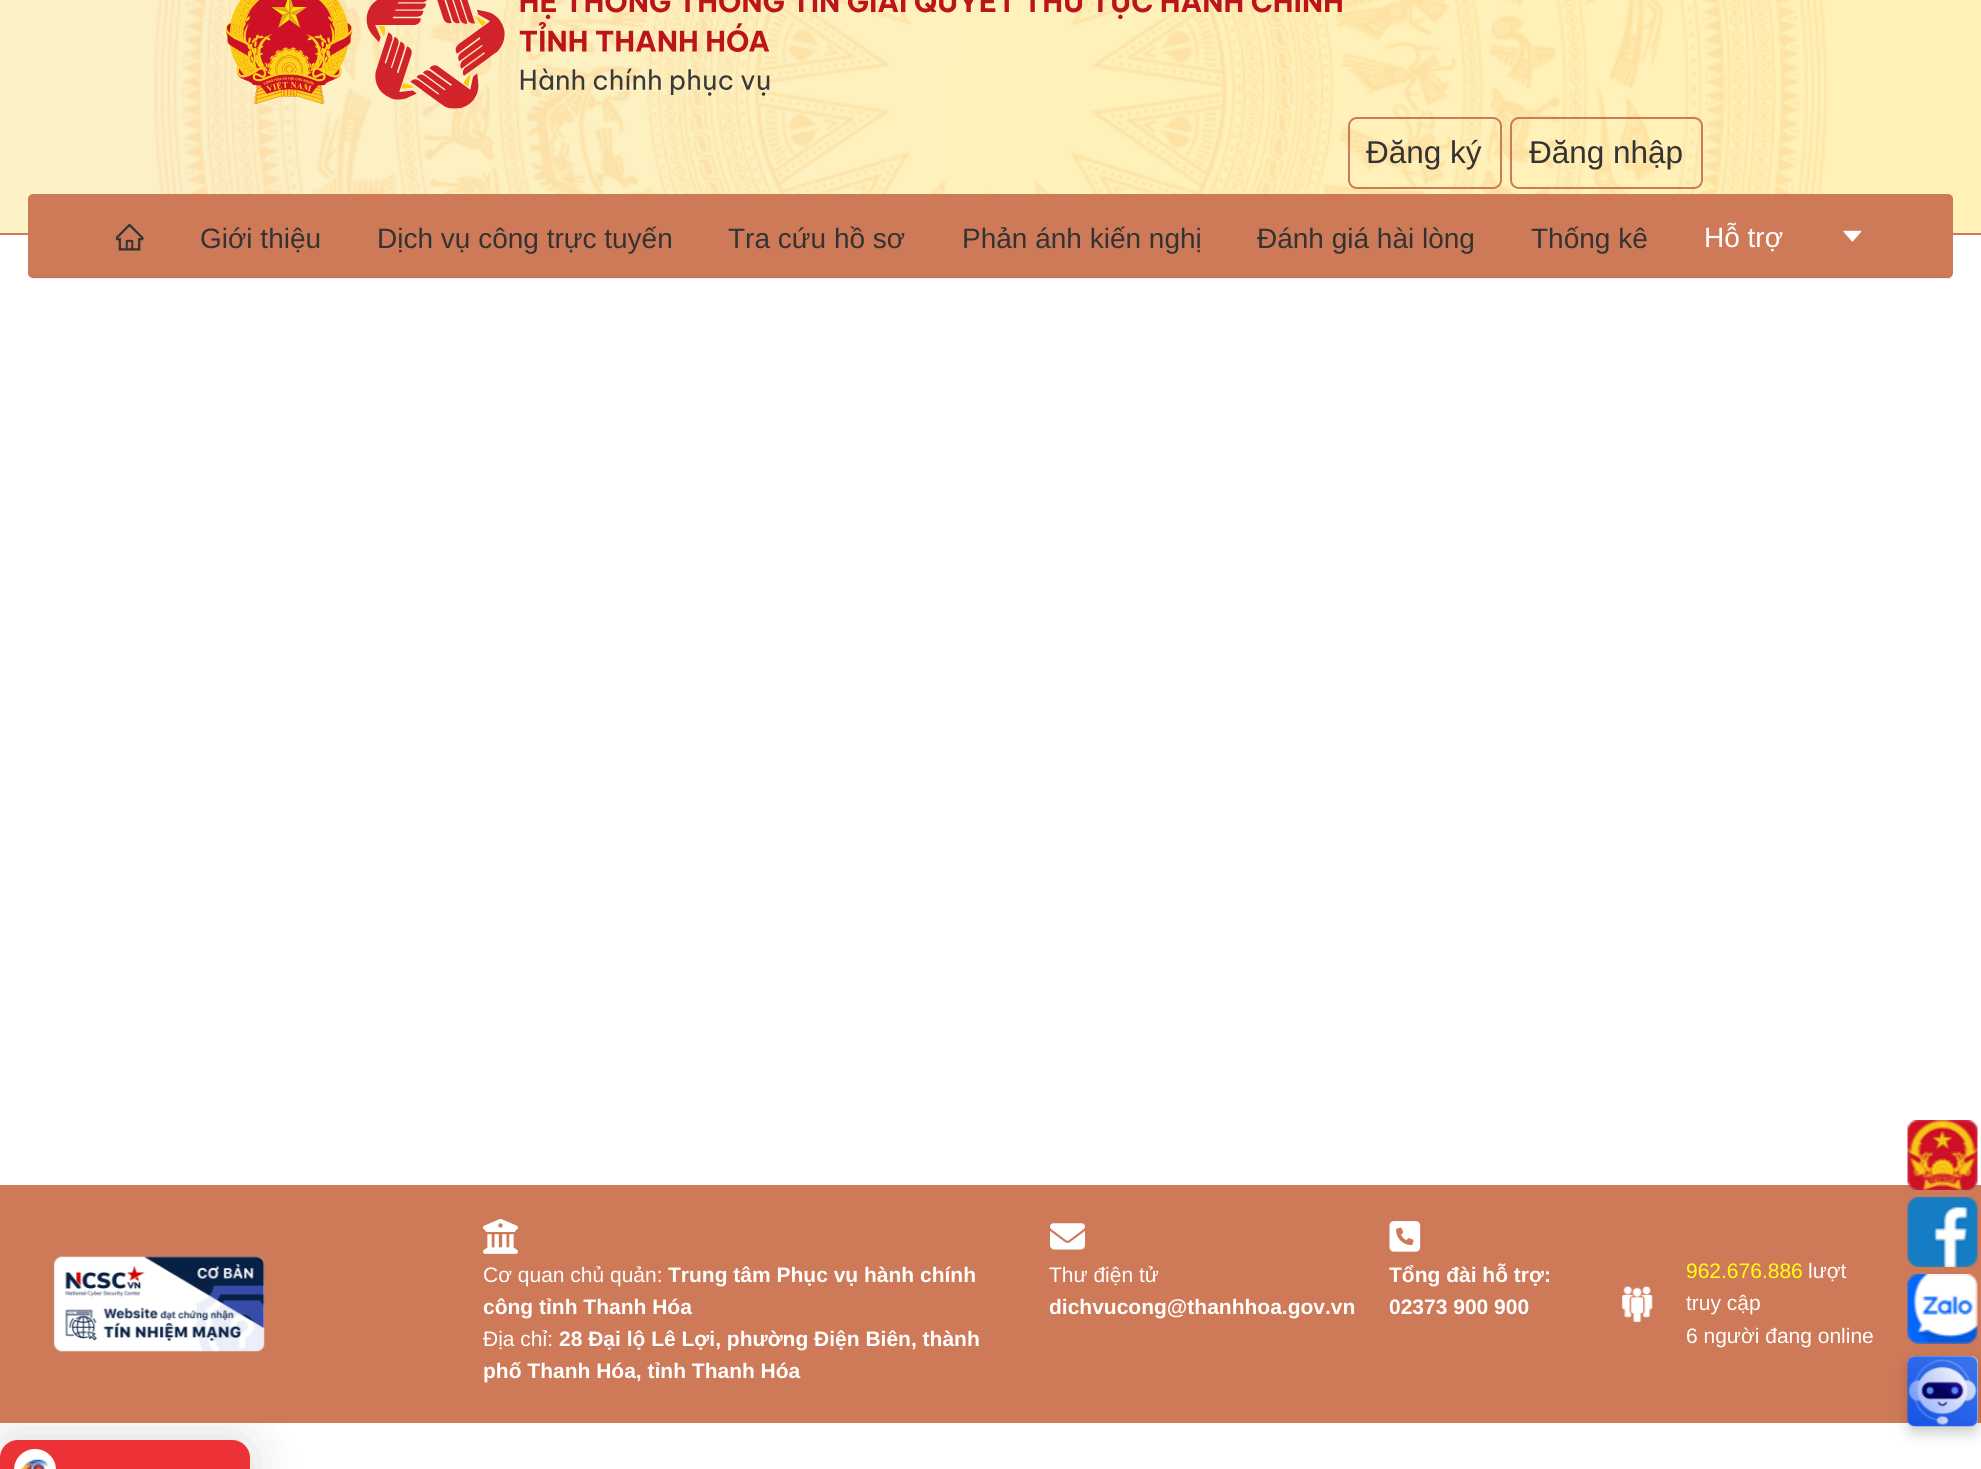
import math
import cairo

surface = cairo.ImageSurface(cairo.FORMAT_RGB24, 1981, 1469)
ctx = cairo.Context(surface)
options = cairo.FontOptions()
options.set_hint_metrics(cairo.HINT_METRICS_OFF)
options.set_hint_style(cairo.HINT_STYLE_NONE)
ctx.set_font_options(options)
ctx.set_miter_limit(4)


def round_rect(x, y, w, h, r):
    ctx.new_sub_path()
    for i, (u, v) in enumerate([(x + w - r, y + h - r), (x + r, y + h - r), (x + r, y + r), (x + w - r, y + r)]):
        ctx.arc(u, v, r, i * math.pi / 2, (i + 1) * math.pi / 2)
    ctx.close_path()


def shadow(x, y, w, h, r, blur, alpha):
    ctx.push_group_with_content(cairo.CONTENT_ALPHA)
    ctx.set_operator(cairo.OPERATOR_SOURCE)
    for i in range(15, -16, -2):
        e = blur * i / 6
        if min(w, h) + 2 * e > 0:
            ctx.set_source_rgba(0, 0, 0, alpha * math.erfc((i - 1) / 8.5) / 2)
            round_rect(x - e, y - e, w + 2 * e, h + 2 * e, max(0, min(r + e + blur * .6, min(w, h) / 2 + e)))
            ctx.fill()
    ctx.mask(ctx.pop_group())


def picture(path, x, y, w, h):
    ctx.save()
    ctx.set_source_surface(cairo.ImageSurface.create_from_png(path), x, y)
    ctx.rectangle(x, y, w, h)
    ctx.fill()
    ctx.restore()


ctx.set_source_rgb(1, 1, 1)
ctx.paint()
picture("img1.png", 0, 0, 1981, 233)
ctx.set_source_rgb(0.808, 0.478, 0.345)
ctx.rectangle(0, 233, 1981, 2)
ctx.fill()
picture("img2.png", 226, 0, 1116, 109)
round_rect(1349, 118, 152, 70, 8)
ctx.stroke()
ctx.select_font_face("Liberation Sans")
ctx.set_font_size(31.5)
ctx.set_source_rgb(0.2, 0.2, 0.2)
ctx.move_to(1366, 163)
ctx.show_text("Đăng ký")
round_rect(1511, 118, 191, 70, 8)
ctx.set_source_rgb(0.808, 0.478, 0.345)
ctx.stroke()
ctx.set_source_rgb(0.2, 0.2, 0.2)
ctx.move_to(1529, 163)
ctx.show_text("Đăng nhập")
ctx.set_source_rgb(0.808, 0.478, 0.345)
round_rect(28, 194, 1925, 84, 5)
ctx.fill()
ctx.set_source_rgba(0.02, 0.02, 0.02, 0.06)
ctx.rectangle(32, 277, 1919, 2)
ctx.fill()
picture("img3.png", 116, 224, 28, 27)
ctx.set_font_size(28)
ctx.set_source_rgb(0.2, 0.2, 0.2)
ctx.move_to(200, 248)
ctx.show_text("Giới thiệu")
ctx.move_to(377, 248)
ctx.show_text("Dịch vụ công trực tuyến")
ctx.move_to(728, 248)
ctx.show_text("Tra cứu hồ sơ")
ctx.move_to(962, 248)
ctx.show_text("Phản ánh kiến nghị")
ctx.move_to(1257, 248)
ctx.show_text("Đánh giá hài lòng")
ctx.move_to(1531, 248)
ctx.show_text("Thống kê")
ctx.set_source_rgb(1, 1, 1)
ctx.move_to(1704, 247)
ctx.show_text("Hỗ trợ")
picture("img4.png", 1843, 230, 19, 12)
ctx.set_source_rgb(0, 0, 0)
shadow(0, 1439, 250, 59, 18, 26, 0.15)
ctx.set_source_rgb(0.808, 0.478, 0.345)
ctx.rectangle(0, 1185, 1981, 238)
ctx.fill()
picture("img5.png", 54, 1256, 211, 96)
picture("img6.png", 483, 1218, 35, 36)
ctx.set_font_size(21)
ctx.set_source_rgb(1, 1, 1)
ctx.move_to(483, 1282)
ctx.show_text("Cơ quan chủ quản:")
ctx.select_font_face("Liberation Sans", cairo.FONT_SLANT_NORMAL, cairo.FONT_WEIGHT_BOLD)
ctx.move_to(668, 1282)
ctx.show_text("Trung tâm Phục vụ hành chính")
ctx.move_to(483, 1314)
ctx.show_text("công tỉnh Thanh Hóa")
ctx.select_font_face("Liberation Sans")
ctx.move_to(483, 1346)
ctx.show_text("Địa chỉ:")
ctx.select_font_face("Liberation Sans", cairo.FONT_SLANT_NORMAL, cairo.FONT_WEIGHT_BOLD)
ctx.move_to(559, 1346)
ctx.show_text("28 Đại lộ Lê Lợi, phường Điện Biên, thành")
ctx.move_to(483, 1378)
ctx.show_text("phố Thanh Hóa, tỉnh Thanh Hóa")
picture("img7.png", 1050, 1223, 35, 27)
ctx.select_font_face("Liberation Sans")
ctx.move_to(1049, 1282)
ctx.show_text("Thư điện tử")
ctx.select_font_face("Liberation Sans", cairo.FONT_SLANT_NORMAL, cairo.FONT_WEIGHT_BOLD)
ctx.move_to(1049, 1314)
ctx.show_text("dichvucong@thanhhoa.gov.vn")
picture("img8.png", 1389, 1221, 32, 31)
ctx.move_to(1389, 1282)
ctx.show_text("Tổng đài hỗ trợ:")
ctx.move_to(1389, 1314)
ctx.show_text("02373 900 900")
picture("img9.png", 1621, 1286, 32, 37)
ctx.select_font_face("Liberation Sans")
ctx.set_source_rgb(1, 1, 0.067)
ctx.move_to(1686, 1278)
ctx.show_text("962.676.886")
ctx.set_source_rgb(1, 1, 1)
ctx.move_to(1808, 1278)
ctx.show_text("lượt")
ctx.move_to(1686, 1310)
ctx.show_text("truy cập")
ctx.move_to(1686, 1343)
ctx.show_text("6 người đang online")
picture("img10.png", 1907, 1120, 71, 70)
picture("img11.png", 1907, 1197, 71, 70)
picture("img12.png", 1907, 1274, 71, 70)
ctx.set_source_rgb(0, 0, 0)
shadow(1908, 1363, 70, 70, 7, 7, 0.2)
ctx.set_source_rgb(0.937, 0.937, 0.937)
round_rect(1908, 1356, 70, 70, 7)
ctx.fill()
picture("img13.png", 1907, 1356, 71, 71)
ctx.set_source_rgb(0.925, 0.196, 0.216)
ctx.new_path()
ctx.move_to(18, 1440)
ctx.line_to(232, 1440)
ctx.curve_to(242, 1440, 250, 1448, 250, 1458)
ctx.line_to(250, 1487)
ctx.line_to(0, 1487)
ctx.line_to(0, 1458)
ctx.curve_to(0, 1448, 8, 1440, 18, 1440)
ctx.close_path()
ctx.fill()
ctx.set_source_rgb(1, 1, 1)
round_rect(14, 1449, 42, 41, 21)
ctx.fill()
picture("img14.png", 21, 1459, 28, 10)
surface.write_to_png("page.png")
